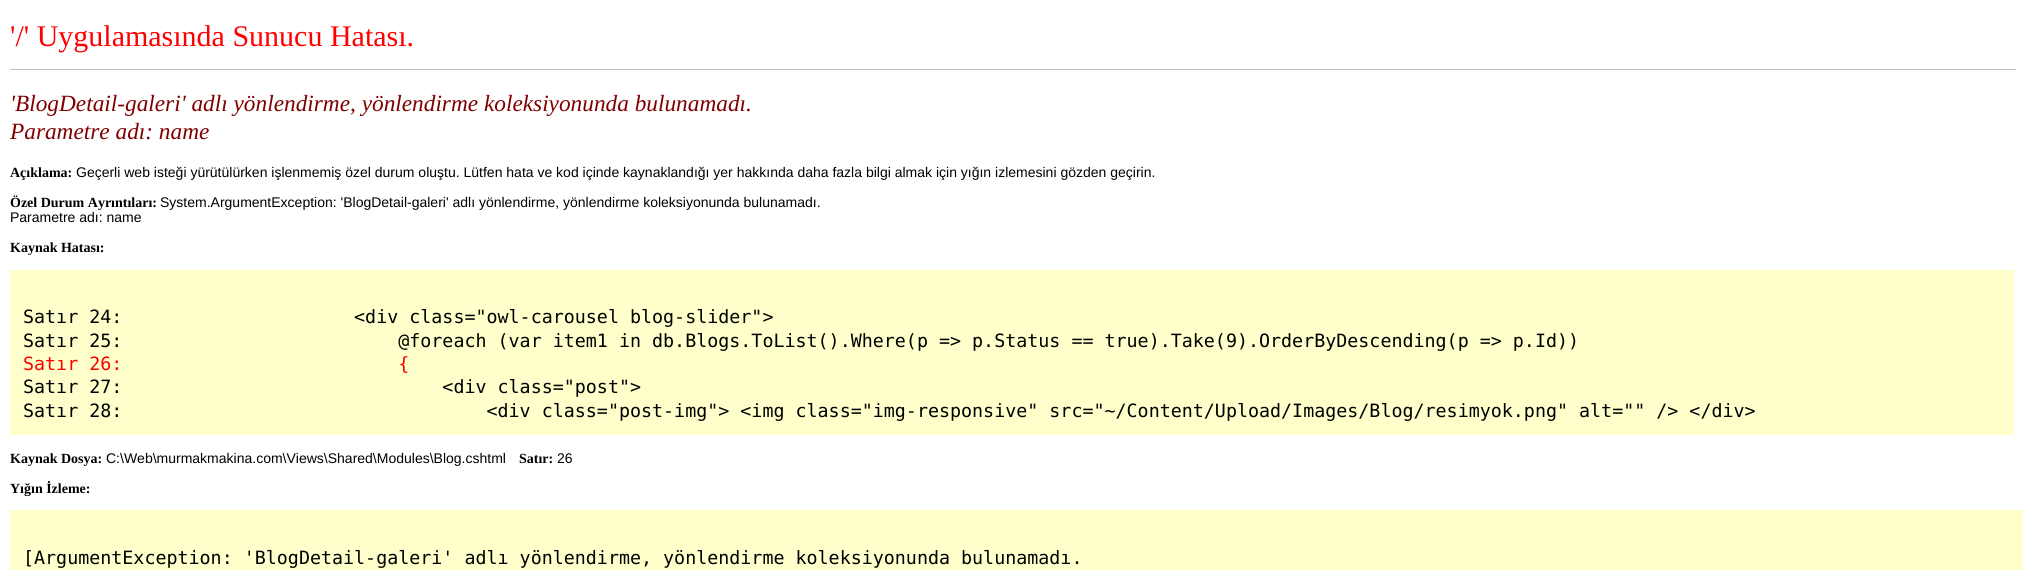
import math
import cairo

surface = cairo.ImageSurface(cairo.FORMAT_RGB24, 2023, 570)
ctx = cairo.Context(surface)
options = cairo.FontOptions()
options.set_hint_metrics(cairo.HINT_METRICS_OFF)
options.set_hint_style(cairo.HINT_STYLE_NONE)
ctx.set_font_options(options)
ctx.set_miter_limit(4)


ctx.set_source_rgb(1, 1, 1)
ctx.paint()
ctx.select_font_face("Liberation Serif")
ctx.set_font_size(30)
ctx.set_source_rgb(1, 0, 0)
ctx.move_to(10, 46)
ctx.show_text("'/' Uygulamasında Sunucu Hatası.")
ctx.set_source_rgb(0.753, 0.753, 0.753)
ctx.rectangle(10, 69, 2006, 1)
ctx.fill()
ctx.select_font_face("Liberation Serif", cairo.FONT_SLANT_ITALIC)
ctx.set_font_size(23.3)
ctx.set_source_rgb(0.502, 0, 0)
ctx.move_to(10, 111)
ctx.show_text("'BlogDetail-galeri' adlı yönlendirme, yönlendirme koleksiyonunda bulunamadı.")
ctx.move_to(10, 139)
ctx.show_text("Parametre adı: name")
ctx.select_font_face("Liberation Serif", cairo.FONT_SLANT_NORMAL, cairo.FONT_WEIGHT_BOLD)
ctx.set_font_size(14)
ctx.set_source_rgb(0, 0, 0)
ctx.move_to(10, 177)
ctx.show_text("Açıklama:")
ctx.select_font_face("Liberation Sans")
ctx.move_to(76, 177)
ctx.show_text("Geçerli web isteği yürütülürken işlenmemiş özel durum oluştu. Lütfen hata ve kod içinde kaynaklandığı yer hakkında daha fazla bilgi almak için yığın izlemesini gözden geçirin.")
ctx.select_font_face("Liberation Serif", cairo.FONT_SLANT_NORMAL, cairo.FONT_WEIGHT_BOLD)
ctx.move_to(10, 207)
ctx.show_text("Özel Durum Ayrıntıları:")
ctx.select_font_face("Liberation Sans")
ctx.move_to(160, 207)
ctx.show_text("System.ArgumentException: 'BlogDetail-galeri' adlı yönlendirme, yönlendirme koleksiyonunda bulunamadı.")
ctx.move_to(10, 222)
ctx.show_text("Parametre adı: name")
ctx.select_font_face("Liberation Serif", cairo.FONT_SLANT_NORMAL, cairo.FONT_WEIGHT_BOLD)
ctx.move_to(10, 252)
ctx.show_text("Kaynak Hatası:")
ctx.set_source_rgb(1, 1, 0.8)
ctx.rectangle(10, 270, 2004, 165)
ctx.fill()
ctx.select_font_face("DejaVu Sans Mono")
ctx.set_font_size(18.33)
ctx.set_source_rgb(0, 0, 0)
ctx.move_to(23, 323)
ctx.show_text("Satır 24:                     <div class=\"owl-carousel blog-slider\">")
ctx.move_to(23, 347)
ctx.show_text("Satır 25:                         @foreach (var item1 in db.Blogs.ToList().Where(p => p.Status == true).Take(9).OrderByDescending(p => p.Id))")
ctx.set_source_rgb(1, 0, 0)
ctx.move_to(23, 370)
ctx.show_text("Satır 26:                         {")
ctx.set_source_rgb(0, 0, 0)
ctx.move_to(23, 393)
ctx.show_text("Satır 27:                             <div class=\"post\">")
ctx.move_to(23, 417)
ctx.show_text("Satır 28:                                 <div class=\"post-img\"> <img class=\"img-responsive\" src=\"~/Content/Upload/Images/Blog/resimyok.png\" alt=\"\" /> </div>")
ctx.select_font_face("Liberation Serif", cairo.FONT_SLANT_NORMAL, cairo.FONT_WEIGHT_BOLD)
ctx.set_font_size(14)
ctx.move_to(10, 463)
ctx.show_text("Kaynak Dosya:")
ctx.select_font_face("Liberation Sans")
ctx.move_to(106, 463)
ctx.show_text("C:\\Web\\murmakmakina.com\\Views\\Shared\\Modules\\Blog.cshtml")
ctx.select_font_face("Liberation Serif", cairo.FONT_SLANT_NORMAL, cairo.FONT_WEIGHT_BOLD)
ctx.move_to(519, 463)
ctx.show_text("Satır:")
ctx.select_font_face("Liberation Sans")
ctx.move_to(557, 463)
ctx.show_text("26")
ctx.select_font_face("Liberation Serif", cairo.FONT_SLANT_NORMAL, cairo.FONT_WEIGHT_BOLD)
ctx.move_to(10, 493)
ctx.show_text("Yığın İzleme:")
ctx.set_source_rgb(1, 1, 0.8)
ctx.rectangle(10, 510, 2013, 60)
ctx.fill()
ctx.select_font_face("DejaVu Sans Mono")
ctx.set_font_size(18.33)
ctx.set_source_rgb(0, 0, 0)
ctx.move_to(23, 564)
ctx.show_text("[ArgumentException: 'BlogDetail-galeri' adlı yönlendirme, yönlendirme koleksiyonunda bulunamadı.")
surface.write_to_png("page.png")
